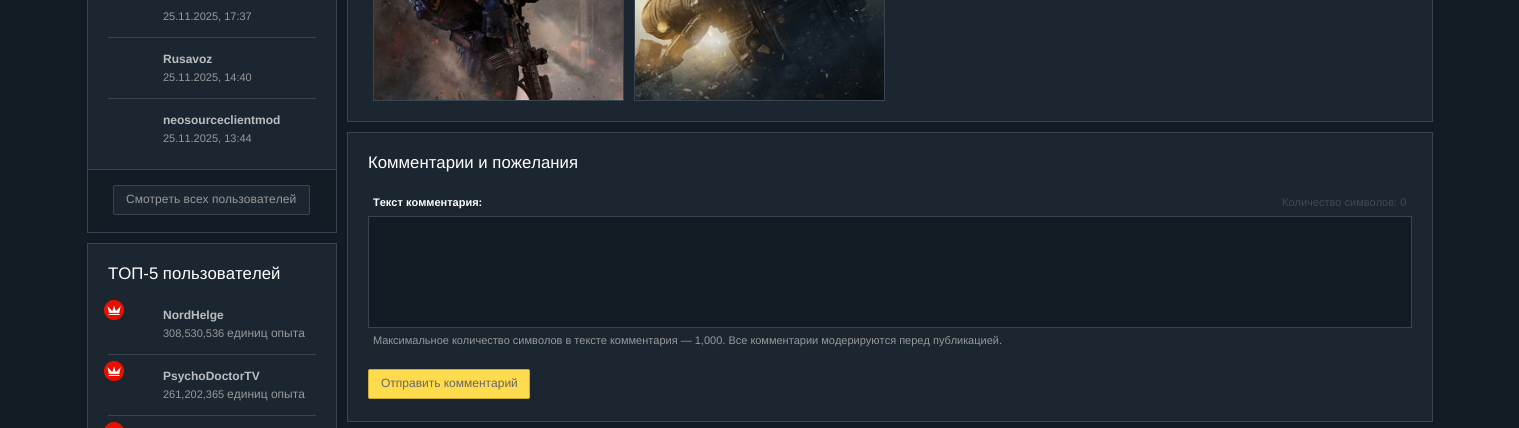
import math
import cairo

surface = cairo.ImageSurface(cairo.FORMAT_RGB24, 1519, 428)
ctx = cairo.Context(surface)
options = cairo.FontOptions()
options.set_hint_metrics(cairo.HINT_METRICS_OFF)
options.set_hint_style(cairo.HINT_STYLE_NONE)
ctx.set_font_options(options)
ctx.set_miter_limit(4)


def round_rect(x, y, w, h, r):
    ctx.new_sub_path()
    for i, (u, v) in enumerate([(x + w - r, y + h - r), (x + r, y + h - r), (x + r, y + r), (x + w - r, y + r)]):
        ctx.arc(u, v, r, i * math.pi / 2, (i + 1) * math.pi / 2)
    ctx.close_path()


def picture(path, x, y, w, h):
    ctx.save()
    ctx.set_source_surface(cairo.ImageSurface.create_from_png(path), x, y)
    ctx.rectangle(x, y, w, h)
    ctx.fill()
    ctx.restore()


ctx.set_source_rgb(0.075, 0.11, 0.141)
ctx.paint()
ctx.set_source_rgb(0.106, 0.149, 0.188)
ctx.rectangle(88, 0, 248, 169)
ctx.fill()
ctx.rectangle(87.5, -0.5, 249, 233)
ctx.set_source_rgb(0.224, 0.275, 0.322)
ctx.set_line_width(1)
ctx.stroke()
ctx.select_font_face("Liberation Sans")
ctx.set_font_size(11)
ctx.set_source_rgb(0.6, 0.6, 0.6)
ctx.move_to(163, 20)
ctx.show_text("25.11.2025, 17:37")
ctx.set_source_rgb(0.224, 0.275, 0.322)
ctx.rectangle(108, 37, 208, 1)
ctx.fill()
ctx.select_font_face("Liberation Sans", cairo.FONT_SLANT_NORMAL, cairo.FONT_WEIGHT_BOLD)
ctx.set_font_size(12)
ctx.set_source_rgb(0.733, 0.745, 0.757)
ctx.move_to(163, 63)
ctx.show_text("Rusavoz")
ctx.select_font_face("Liberation Sans")
ctx.set_font_size(11)
ctx.set_source_rgb(0.6, 0.6, 0.6)
ctx.move_to(163, 81)
ctx.show_text("25.11.2025, 14:40")
ctx.set_source_rgb(0.224, 0.275, 0.322)
ctx.rectangle(108, 98, 208, 1)
ctx.fill()
ctx.select_font_face("Liberation Sans", cairo.FONT_SLANT_NORMAL, cairo.FONT_WEIGHT_BOLD)
ctx.set_font_size(12)
ctx.set_source_rgb(0.733, 0.745, 0.757)
ctx.move_to(163, 124)
ctx.show_text("neosourceclientmod")
ctx.select_font_face("Liberation Sans")
ctx.set_font_size(11)
ctx.set_source_rgb(0.6, 0.6, 0.6)
ctx.move_to(163, 142)
ctx.show_text("25.11.2025, 13:44")
ctx.set_source_rgb(0.224, 0.275, 0.322)
ctx.rectangle(88, 169, 248, 1)
ctx.fill()
ctx.set_source_rgb(0.106, 0.149, 0.188)
round_rect(113.5, 185.5, 196, 29, 1.5)
ctx.fill_preserve()
ctx.set_source_rgb(0.224, 0.275, 0.322)
ctx.stroke()
ctx.set_font_size(12)
ctx.set_source_rgb(0.6, 0.6, 0.6)
ctx.move_to(126, 203)
ctx.show_text("Смотреть всех пользователей")
ctx.set_source_rgb(0.106, 0.149, 0.188)
ctx.rectangle(87.5, 243.5, 249, 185)
ctx.fill_preserve()
ctx.set_source_rgb(0.224, 0.275, 0.322)
ctx.stroke()
ctx.set_font_size(16.75)
ctx.set_source_rgb(1, 1, 1)
ctx.move_to(108, 279)
ctx.show_text("ТОП-5 пользователей")
ctx.set_source_rgb(0.224, 0.275, 0.322)
ctx.rectangle(108, 354, 208, 1)
ctx.fill()
picture("img1.png", 104, 300, 20, 20)
ctx.select_font_face("Liberation Sans", cairo.FONT_SLANT_NORMAL, cairo.FONT_WEIGHT_BOLD)
ctx.set_font_size(12)
ctx.set_source_rgb(0.733, 0.745, 0.757)
ctx.move_to(163, 319)
ctx.show_text("NordHelge")
ctx.select_font_face("Liberation Sans")
ctx.set_font_size(11)
ctx.set_source_rgb(0.6, 0.6, 0.6)
ctx.move_to(163, 337)
ctx.show_text("308,530,536")
ctx.set_font_size(12)
ctx.move_to(227, 337)
ctx.show_text("единиц опыта")
ctx.set_source_rgb(0.224, 0.275, 0.322)
ctx.rectangle(108, 415, 208, 1)
ctx.fill()
picture("img1.png", 104, 361, 20, 20)
ctx.select_font_face("Liberation Sans", cairo.FONT_SLANT_NORMAL, cairo.FONT_WEIGHT_BOLD)
ctx.set_source_rgb(0.733, 0.745, 0.757)
ctx.move_to(163, 380)
ctx.show_text("PsychoDoctorTV")
ctx.select_font_face("Liberation Sans")
ctx.set_font_size(11)
ctx.set_source_rgb(0.6, 0.6, 0.6)
ctx.move_to(163, 398)
ctx.show_text("261,202,365")
ctx.set_font_size(12)
ctx.move_to(227, 398)
ctx.show_text("единиц опыта")
picture("img2.png", 104, 422, 20, 6)
ctx.set_source_rgb(0.106, 0.149, 0.188)
ctx.rectangle(347.5, -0.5, 1085, 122)
ctx.fill_preserve()
ctx.set_source_rgb(0.224, 0.275, 0.322)
ctx.stroke()
ctx.rectangle(373.5, -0.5, 250, 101)
ctx.stroke()
picture("img3.png", 374, 0, 249, 100)
ctx.rectangle(634.5, -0.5, 250, 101)
ctx.stroke()
picture("img4.png", 635, 0, 249, 100)
ctx.set_source_rgb(0.106, 0.149, 0.188)
ctx.rectangle(347.5, 132.5, 1085, 289)
ctx.fill_preserve()
ctx.set_source_rgb(0.224, 0.275, 0.322)
ctx.stroke()
ctx.set_font_size(16.75)
ctx.set_source_rgb(1, 1, 1)
ctx.move_to(368, 168)
ctx.show_text("Комментарии и пожелания")
ctx.select_font_face("Liberation Sans", cairo.FONT_SLANT_NORMAL, cairo.FONT_WEIGHT_BOLD)
ctx.set_font_size(11)
ctx.move_to(373, 206)
ctx.show_text("Текст комментария:")
ctx.select_font_face("Liberation Sans")
ctx.set_source_rgb(0.255, 0.286, 0.314)
ctx.move_to(1282, 206)
ctx.show_text("Количество символов: 0")
ctx.set_source_rgb(0.075, 0.11, 0.141)
ctx.rectangle(368.5, 216.5, 1043, 111)
ctx.fill_preserve()
ctx.set_source_rgb(0.224, 0.275, 0.322)
ctx.stroke()
ctx.set_source_rgb(0.6, 0.6, 0.6)
ctx.move_to(373, 344)
ctx.show_text("Максимальное количество символов в тексте комментария — 1,000. Все комментарии модерируются перед публикацией.")
ctx.set_source_rgb(1, 0.859, 0.302)
round_rect(368.5, 369.5, 161, 29, 1.5)
ctx.fill_preserve()
ctx.set_source_rgb(0.8, 0.678, 0.2)
ctx.stroke()
ctx.set_font_size(12)
ctx.set_source_rgb(0.4, 0.4, 0.4)
ctx.move_to(381, 387)
ctx.show_text("Отправить комментарий")
surface.write_to_png("page.png")
